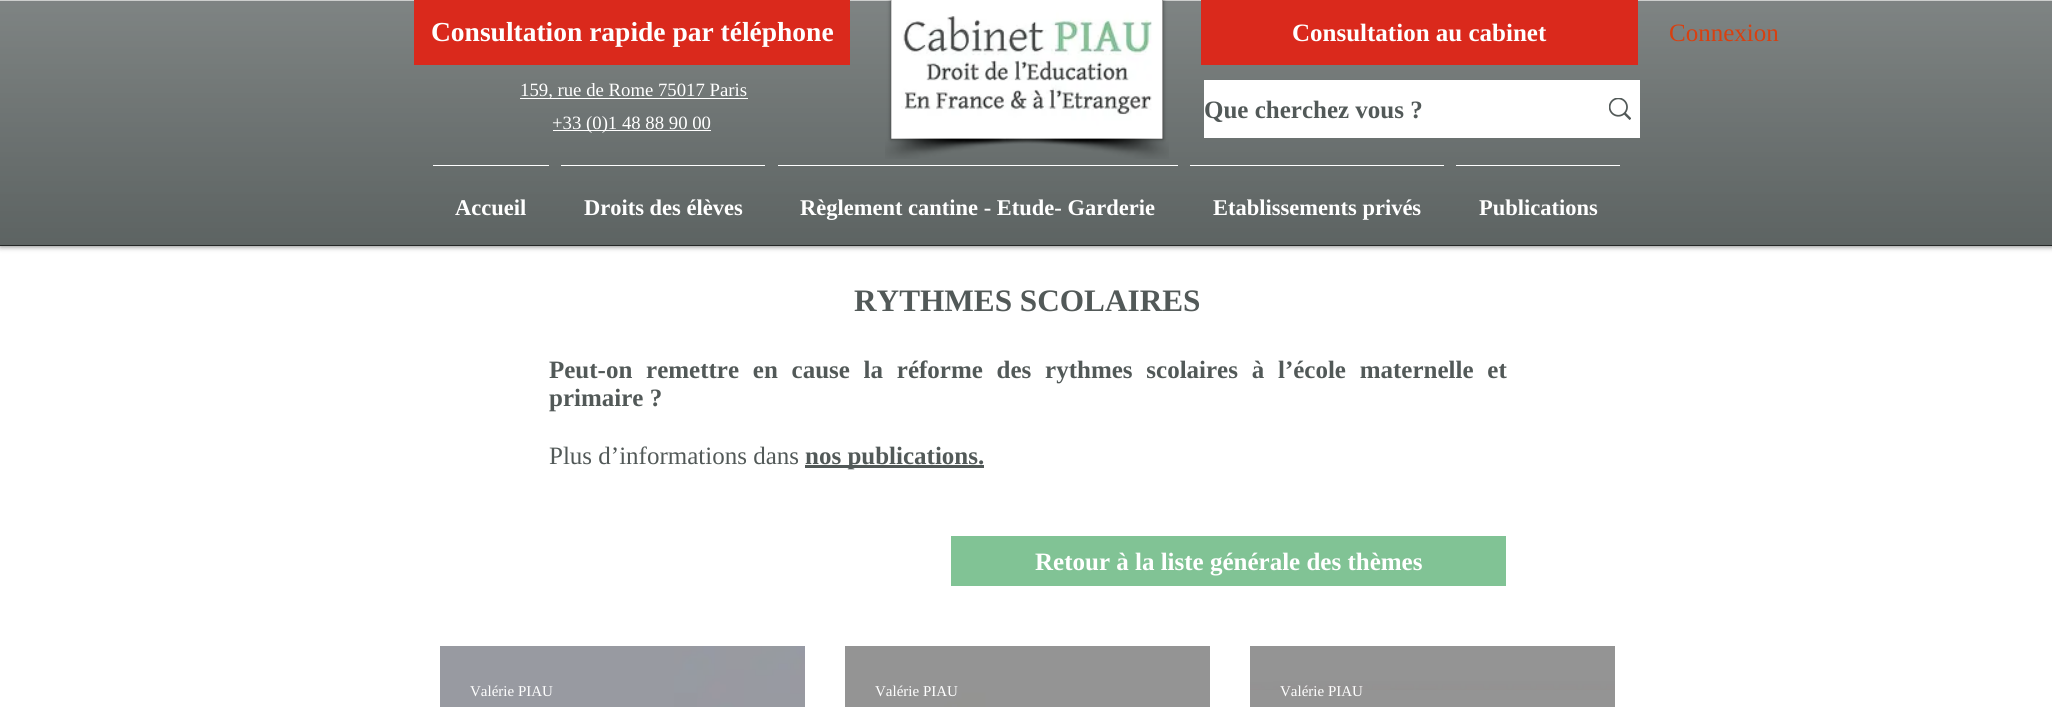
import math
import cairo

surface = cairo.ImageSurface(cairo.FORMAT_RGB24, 2052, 707)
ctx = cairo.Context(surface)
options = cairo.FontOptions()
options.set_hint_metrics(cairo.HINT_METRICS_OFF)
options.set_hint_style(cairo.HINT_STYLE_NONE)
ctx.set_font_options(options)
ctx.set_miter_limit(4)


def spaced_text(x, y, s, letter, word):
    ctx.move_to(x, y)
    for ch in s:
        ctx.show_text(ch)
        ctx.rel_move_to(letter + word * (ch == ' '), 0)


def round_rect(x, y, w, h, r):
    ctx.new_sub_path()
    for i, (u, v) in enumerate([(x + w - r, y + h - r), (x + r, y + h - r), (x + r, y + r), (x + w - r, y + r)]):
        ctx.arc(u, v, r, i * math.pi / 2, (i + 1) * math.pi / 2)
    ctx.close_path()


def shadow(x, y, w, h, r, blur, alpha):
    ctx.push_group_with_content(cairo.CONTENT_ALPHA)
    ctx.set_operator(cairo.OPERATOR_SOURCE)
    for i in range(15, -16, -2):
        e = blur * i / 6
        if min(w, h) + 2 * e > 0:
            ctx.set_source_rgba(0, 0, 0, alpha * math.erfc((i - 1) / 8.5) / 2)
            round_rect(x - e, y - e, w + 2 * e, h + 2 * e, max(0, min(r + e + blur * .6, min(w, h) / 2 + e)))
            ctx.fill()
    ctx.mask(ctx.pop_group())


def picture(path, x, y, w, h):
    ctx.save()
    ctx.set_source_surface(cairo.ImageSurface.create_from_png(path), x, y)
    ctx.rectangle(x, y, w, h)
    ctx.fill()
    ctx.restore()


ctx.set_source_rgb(1, 1, 1)
ctx.paint()
ctx.set_source_rgb(0, 0, 0)
shadow(0, 0, 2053, 246, 0, 3, 0.6)
ctx.set_source_rgb(0.322, 0.349, 0.345)
ctx.rectangle(0, 1, 2052, 244)
ctx.fill()
picture("img1.png", 0, 1, 2052, 244)
ctx.set_source_rgb(0.145, 0.157, 0.153)
ctx.rectangle(0, 245, 2052, 1)
ctx.fill()
ctx.set_source_rgb(0.8, 0.808, 0.804)
ctx.rectangle(0, 0, 2052, 1)
ctx.fill()
ctx.set_source_rgb(0.855, 0.161, 0.11)
ctx.rectangle(414, 0, 436, 65)
ctx.fill()
ctx.select_font_face("Liberation Serif", cairo.FONT_SLANT_NORMAL, cairo.FONT_WEIGHT_BOLD)
ctx.set_font_size(27.5)
ctx.set_source_rgb(1, 1, 1)
ctx.move_to(431, 41)
ctx.show_text("Consultation rapide par téléphone")
ctx.set_source_rgb(0, 0, 0)
shadow(891, 0, 272, 139, 0, 2, 0.5)
ctx.set_source_rgb(0.22, 0.22, 0.22)
ctx.rectangle(891, 0, 272, 139)
ctx.fill()
picture("img2.png", 891, 0, 272, 139)
picture("img3.png", 885, 138, 171, 21)
picture("img4.png", 1006, 138, 163, 21)
ctx.set_source_rgb(0.855, 0.161, 0.11)
ctx.rectangle(1201, 0, 437, 65)
ctx.fill()
ctx.set_font_size(25)
ctx.set_source_rgb(1, 1, 1)
ctx.move_to(1292, 41)
ctx.show_text("Consultation au cabinet")
ctx.select_font_face("Liberation Serif")
ctx.set_source_rgb(0.847, 0.251, 0.063)
ctx.move_to(1669, 41)
ctx.show_text("Connexion")
ctx.set_source_rgb(1, 1, 1)
ctx.rectangle(520, 98, 228, 1)
ctx.fill()
ctx.set_font_size(18.75)
ctx.move_to(520, 96)
ctx.show_text("159, rue de Rome 75017 Paris")
ctx.rectangle(553, 130, 158, 1)
ctx.fill()
ctx.move_to(552, 129)
ctx.show_text("+33 (0)1 48 88 90 00")
ctx.rectangle(1204, 80, 436, 58)
ctx.fill()
ctx.select_font_face("Liberation Serif", cairo.FONT_SLANT_NORMAL, cairo.FONT_WEIGHT_BOLD)
ctx.set_font_size(25)
ctx.set_source_rgb(0.322, 0.349, 0.345)
ctx.move_to(1204, 118)
ctx.show_text("Que cherchez vous ?")
picture("img5.png", 1609, 98, 22, 22)
ctx.set_source_rgb(1, 1, 1)
ctx.rectangle(433, 165, 116, 1)
ctx.fill()
ctx.set_font_size(22.5)
ctx.move_to(455, 215)
ctx.show_text("Accueil")
ctx.rectangle(561, 165, 204, 1)
ctx.fill()
ctx.move_to(584, 215)
ctx.show_text("Droits des élèves")
ctx.rectangle(778, 165, 400, 1)
ctx.fill()
ctx.move_to(800, 215)
ctx.show_text("Règlement cantine - Etude- Garderie")
ctx.rectangle(1190, 165, 254, 1)
ctx.fill()
ctx.move_to(1213, 215)
ctx.show_text("Etablissements privés")
ctx.rectangle(1456, 165, 164, 1)
ctx.fill()
ctx.move_to(1479, 215)
ctx.show_text("Publications")
ctx.set_font_size(31.25)
ctx.set_source_rgb(0.322, 0.349, 0.345)
ctx.move_to(854, 311)
ctx.show_text("RYTHMES SCOLAIRES")
ctx.set_font_size(25)
spaced_text(549, 378, "Peut-on remettre en cause la réforme des rythmes scolaires à l’école maternelle et", 0, 7.5)
ctx.move_to(549, 406)
ctx.show_text("primaire ?")
ctx.select_font_face("Liberation Serif")
ctx.move_to(549, 464)
ctx.show_text("Plus d’informations dans")
ctx.rectangle(805, 465, 179, 3)
ctx.fill()
ctx.select_font_face("Liberation Serif", cairo.FONT_SLANT_NORMAL, cairo.FONT_WEIGHT_BOLD)
ctx.move_to(805, 464)
ctx.show_text("nos publications.")
ctx.set_source_rgb(0.506, 0.765, 0.584)
ctx.rectangle(951, 536, 555, 50)
ctx.fill()
ctx.set_source_rgb(1, 1, 1)
ctx.move_to(1035, 570)
ctx.show_text("Retour à la liste générale des thèmes")
ctx.set_source_rgb(0.596, 0.604, 0.631)
ctx.rectangle(440, 646, 234, 61)
ctx.fill()
picture("img6.png", 674, 646, 131, 61)
ctx.select_font_face("Liberation Serif")
ctx.set_font_size(15)
ctx.set_source_rgb(1, 1, 1)
ctx.move_to(470, 696)
ctx.show_text("Valérie PIAU")
picture("img7.png", 845, 646, 365, 61)
ctx.set_source_rgb(0.58, 0.58, 0.58)
ctx.rectangle(952, 704, 5, 3)
ctx.fill()
ctx.set_source_rgb(1, 1, 1)
ctx.move_to(875, 696)
ctx.show_text("Valérie PIAU")
picture("img8.png", 1250, 646, 365, 44)
ctx.set_source_rgb(0.58, 0.58, 0.58)
ctx.rectangle(1250, 690, 365, 17)
ctx.fill()
ctx.set_source_rgb(1, 1, 1)
ctx.move_to(1280, 696)
ctx.show_text("Valérie PIAU")
surface.write_to_png("page.png")
